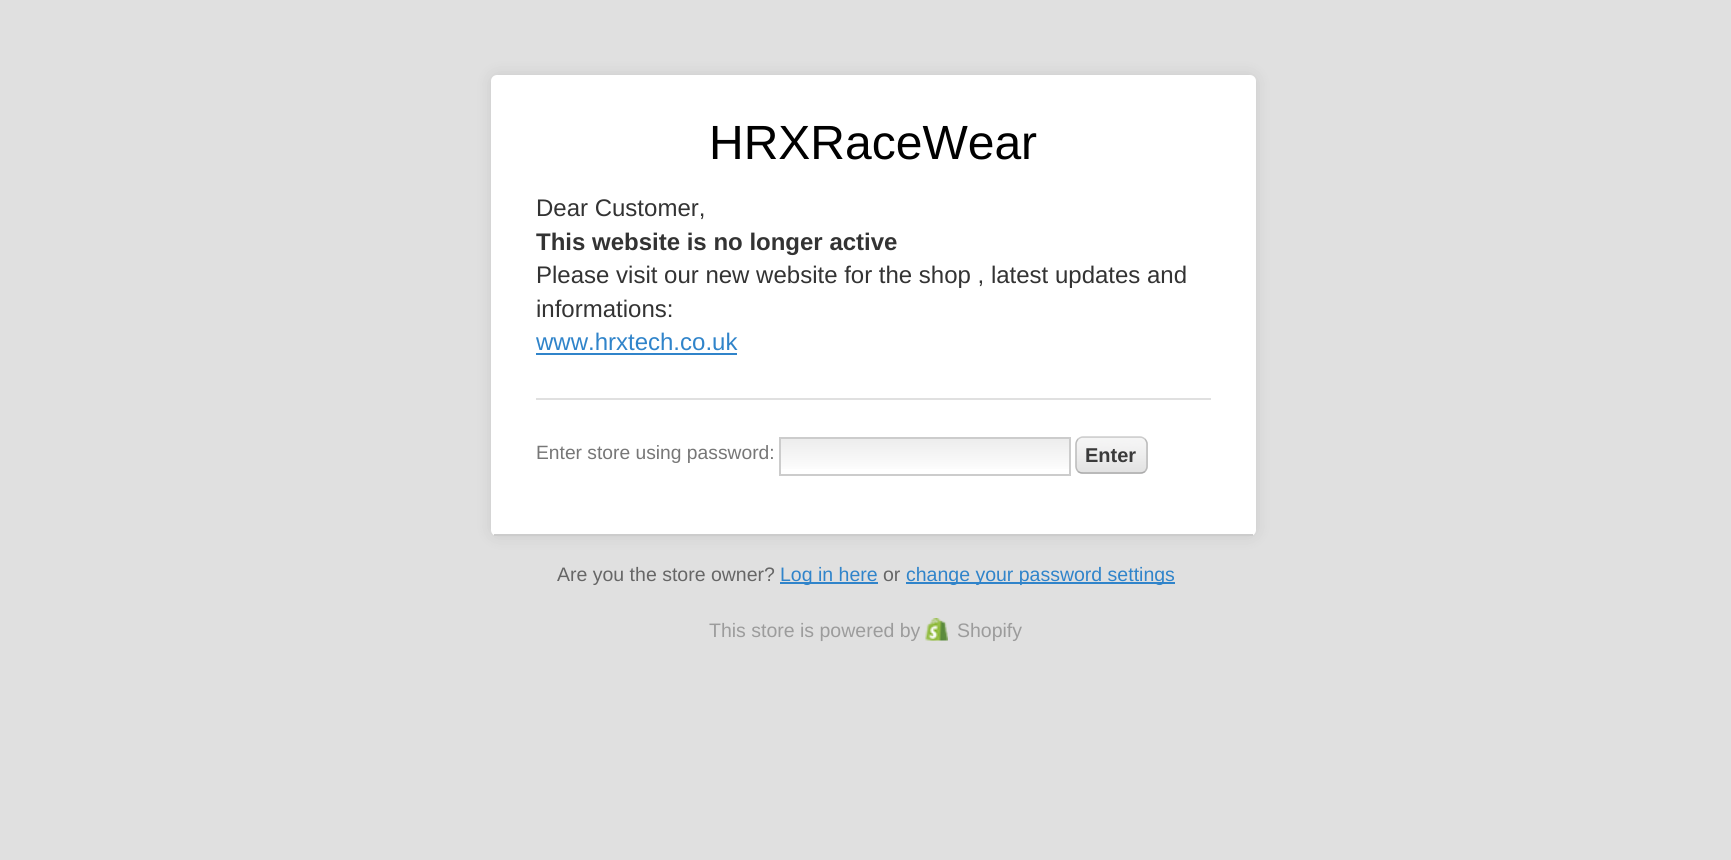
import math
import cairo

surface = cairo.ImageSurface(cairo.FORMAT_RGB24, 1731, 860)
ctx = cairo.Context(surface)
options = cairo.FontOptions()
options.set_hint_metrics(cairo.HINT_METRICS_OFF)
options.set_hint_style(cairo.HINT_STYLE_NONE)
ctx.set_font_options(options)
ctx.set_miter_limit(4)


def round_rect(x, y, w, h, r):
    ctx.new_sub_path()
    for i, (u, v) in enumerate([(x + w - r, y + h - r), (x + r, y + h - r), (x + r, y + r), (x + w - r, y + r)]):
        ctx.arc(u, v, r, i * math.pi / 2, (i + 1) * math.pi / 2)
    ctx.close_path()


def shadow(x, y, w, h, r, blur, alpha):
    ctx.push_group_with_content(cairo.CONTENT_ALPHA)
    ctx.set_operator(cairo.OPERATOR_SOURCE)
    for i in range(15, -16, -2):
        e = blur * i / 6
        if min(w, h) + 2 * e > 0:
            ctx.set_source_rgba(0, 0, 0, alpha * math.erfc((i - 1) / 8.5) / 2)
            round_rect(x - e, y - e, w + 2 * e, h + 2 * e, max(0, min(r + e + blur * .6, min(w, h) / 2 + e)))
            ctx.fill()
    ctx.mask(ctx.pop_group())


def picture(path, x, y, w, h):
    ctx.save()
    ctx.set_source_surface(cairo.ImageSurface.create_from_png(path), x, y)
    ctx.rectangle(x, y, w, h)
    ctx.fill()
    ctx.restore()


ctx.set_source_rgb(0.878, 0.878, 0.878)
ctx.paint()
ctx.set_source_rgb(0, 0, 0)
shadow(491, 75, 765, 461, 6, 7.5, 0.1)
ctx.set_source_rgb(1, 1, 1)
round_rect(491, 75, 765, 461, 6)
ctx.fill()
ctx.set_source_rgb(0.8, 0.8, 0.8)
ctx.rectangle(494, 534, 759, 2)
ctx.fill()
ctx.select_font_face("Liberation Sans")
ctx.set_font_size(48)
ctx.set_source_rgb(0, 0, 0)
ctx.move_to(709, 159)
ctx.show_text("HRXRaceWear")
ctx.set_font_size(24)
ctx.set_source_rgb(0.2, 0.2, 0.2)
ctx.move_to(536, 216)
ctx.show_text("Dear Customer,")
ctx.select_font_face("Liberation Sans", cairo.FONT_SLANT_NORMAL, cairo.FONT_WEIGHT_BOLD)
ctx.move_to(536, 250)
ctx.show_text("This website is no longer active")
ctx.select_font_face("Liberation Sans")
ctx.move_to(536, 283)
ctx.show_text("Please visit our new website for the shop , latest updates and")
ctx.move_to(536, 317)
ctx.show_text("informations:")
ctx.set_source_rgb(0.188, 0.518, 0.792)
ctx.move_to(536, 350)
ctx.show_text("www.hrxtech.co.uk")
ctx.rectangle(536, 353, 201, 2)
ctx.fill()
ctx.set_source_rgb(0.878, 0.878, 0.878)
ctx.rectangle(536, 398, 675, 2)
ctx.fill()
ctx.set_font_size(19.25)
ctx.set_source_rgb(0.467, 0.467, 0.467)
ctx.move_to(536, 459)
ctx.show_text("Enter store using password:")
gradient = cairo.LinearGradient(780, 438, 780, 474)
gradient.add_color_stop_rgba(0, 0.925, 0.925, 0.925, 1)
gradient.add_color_stop_rgba(1, 1, 1, 1, 1)
ctx.set_source(gradient)
ctx.rectangle(781, 439, 288, 30)
ctx.fill()
ctx.rectangle(780, 438, 290, 37)
ctx.set_source_rgb(0.8, 0.8, 0.8)
ctx.stroke()
ctx.set_source_rgb(0.867, 0.867, 0.867)
round_rect(1076, 437, 72, 37, 8)
ctx.fill()
picture("img1.png", 1075, 438, 73, 36)
ctx.new_path()
ctx.move_to(1078, 439)
ctx.curve_to(1079.5, 438, 1081, 437, 1083, 437)
ctx.line_to(1140, 437)
ctx.curve_to(1142, 437, 1143.5, 438, 1145, 439)
ctx.set_source_rgb(0.8, 0.8, 0.8)
ctx.set_line_width(1.5)
ctx.stroke()
ctx.new_path()
ctx.move_to(1145, 439)
ctx.curve_to(1146, 440.5, 1147, 442, 1147, 444)
ctx.line_to(1147, 466.5)
ctx.curve_to(1147, 468.5, 1146, 470, 1145, 471.5)
ctx.set_source_rgb(0.733, 0.733, 0.733)
ctx.stroke()
ctx.new_path()
ctx.move_to(1145, 471.5)
ctx.curve_to(1143.5, 472.5, 1142, 473, 1140, 473)
ctx.line_to(1083, 473)
ctx.curve_to(1081, 473, 1079.5, 472.5, 1078, 471.5)
ctx.set_source_rgb(0.667, 0.667, 0.667)
ctx.stroke()
ctx.new_path()
ctx.move_to(1078, 471.5)
ctx.curve_to(1077, 470, 1076, 468.5, 1076, 466.5)
ctx.line_to(1076, 444)
ctx.curve_to(1076, 442, 1077, 440.5, 1078, 439)
ctx.set_source_rgb(0.733, 0.733, 0.733)
ctx.stroke()
ctx.select_font_face("Liberation Sans", cairo.FONT_SLANT_NORMAL, cairo.FONT_WEIGHT_BOLD)
ctx.set_font_size(20)
ctx.set_source_rgb(0.227, 0.227, 0.227)
ctx.move_to(1085, 462)
ctx.show_text("Enter")
ctx.select_font_face("Liberation Sans")
ctx.set_font_size(19.5)
ctx.set_source_rgb(0.4, 0.4, 0.4)
ctx.move_to(557, 581)
ctx.show_text("Are you the store owner?")
ctx.set_source_rgb(0.188, 0.518, 0.792)
ctx.rectangle(780, 582, 98, 2)
ctx.fill()
ctx.move_to(780, 581)
ctx.show_text("Log in here")
ctx.set_source_rgb(0.4, 0.4, 0.4)
ctx.move_to(883, 581)
ctx.show_text("or")
ctx.set_source_rgb(0.188, 0.518, 0.792)
ctx.rectangle(906, 582, 269, 2)
ctx.fill()
ctx.move_to(906, 581)
ctx.show_text("change your password settings")
ctx.set_source_rgb(0.612, 0.612, 0.612)
ctx.move_to(709, 637)
ctx.show_text("This store is powered by")
picture("img2.png", 925, 618, 23, 23)
ctx.move_to(957, 637)
ctx.show_text("Shopify")
surface.write_to_png("page.png")
